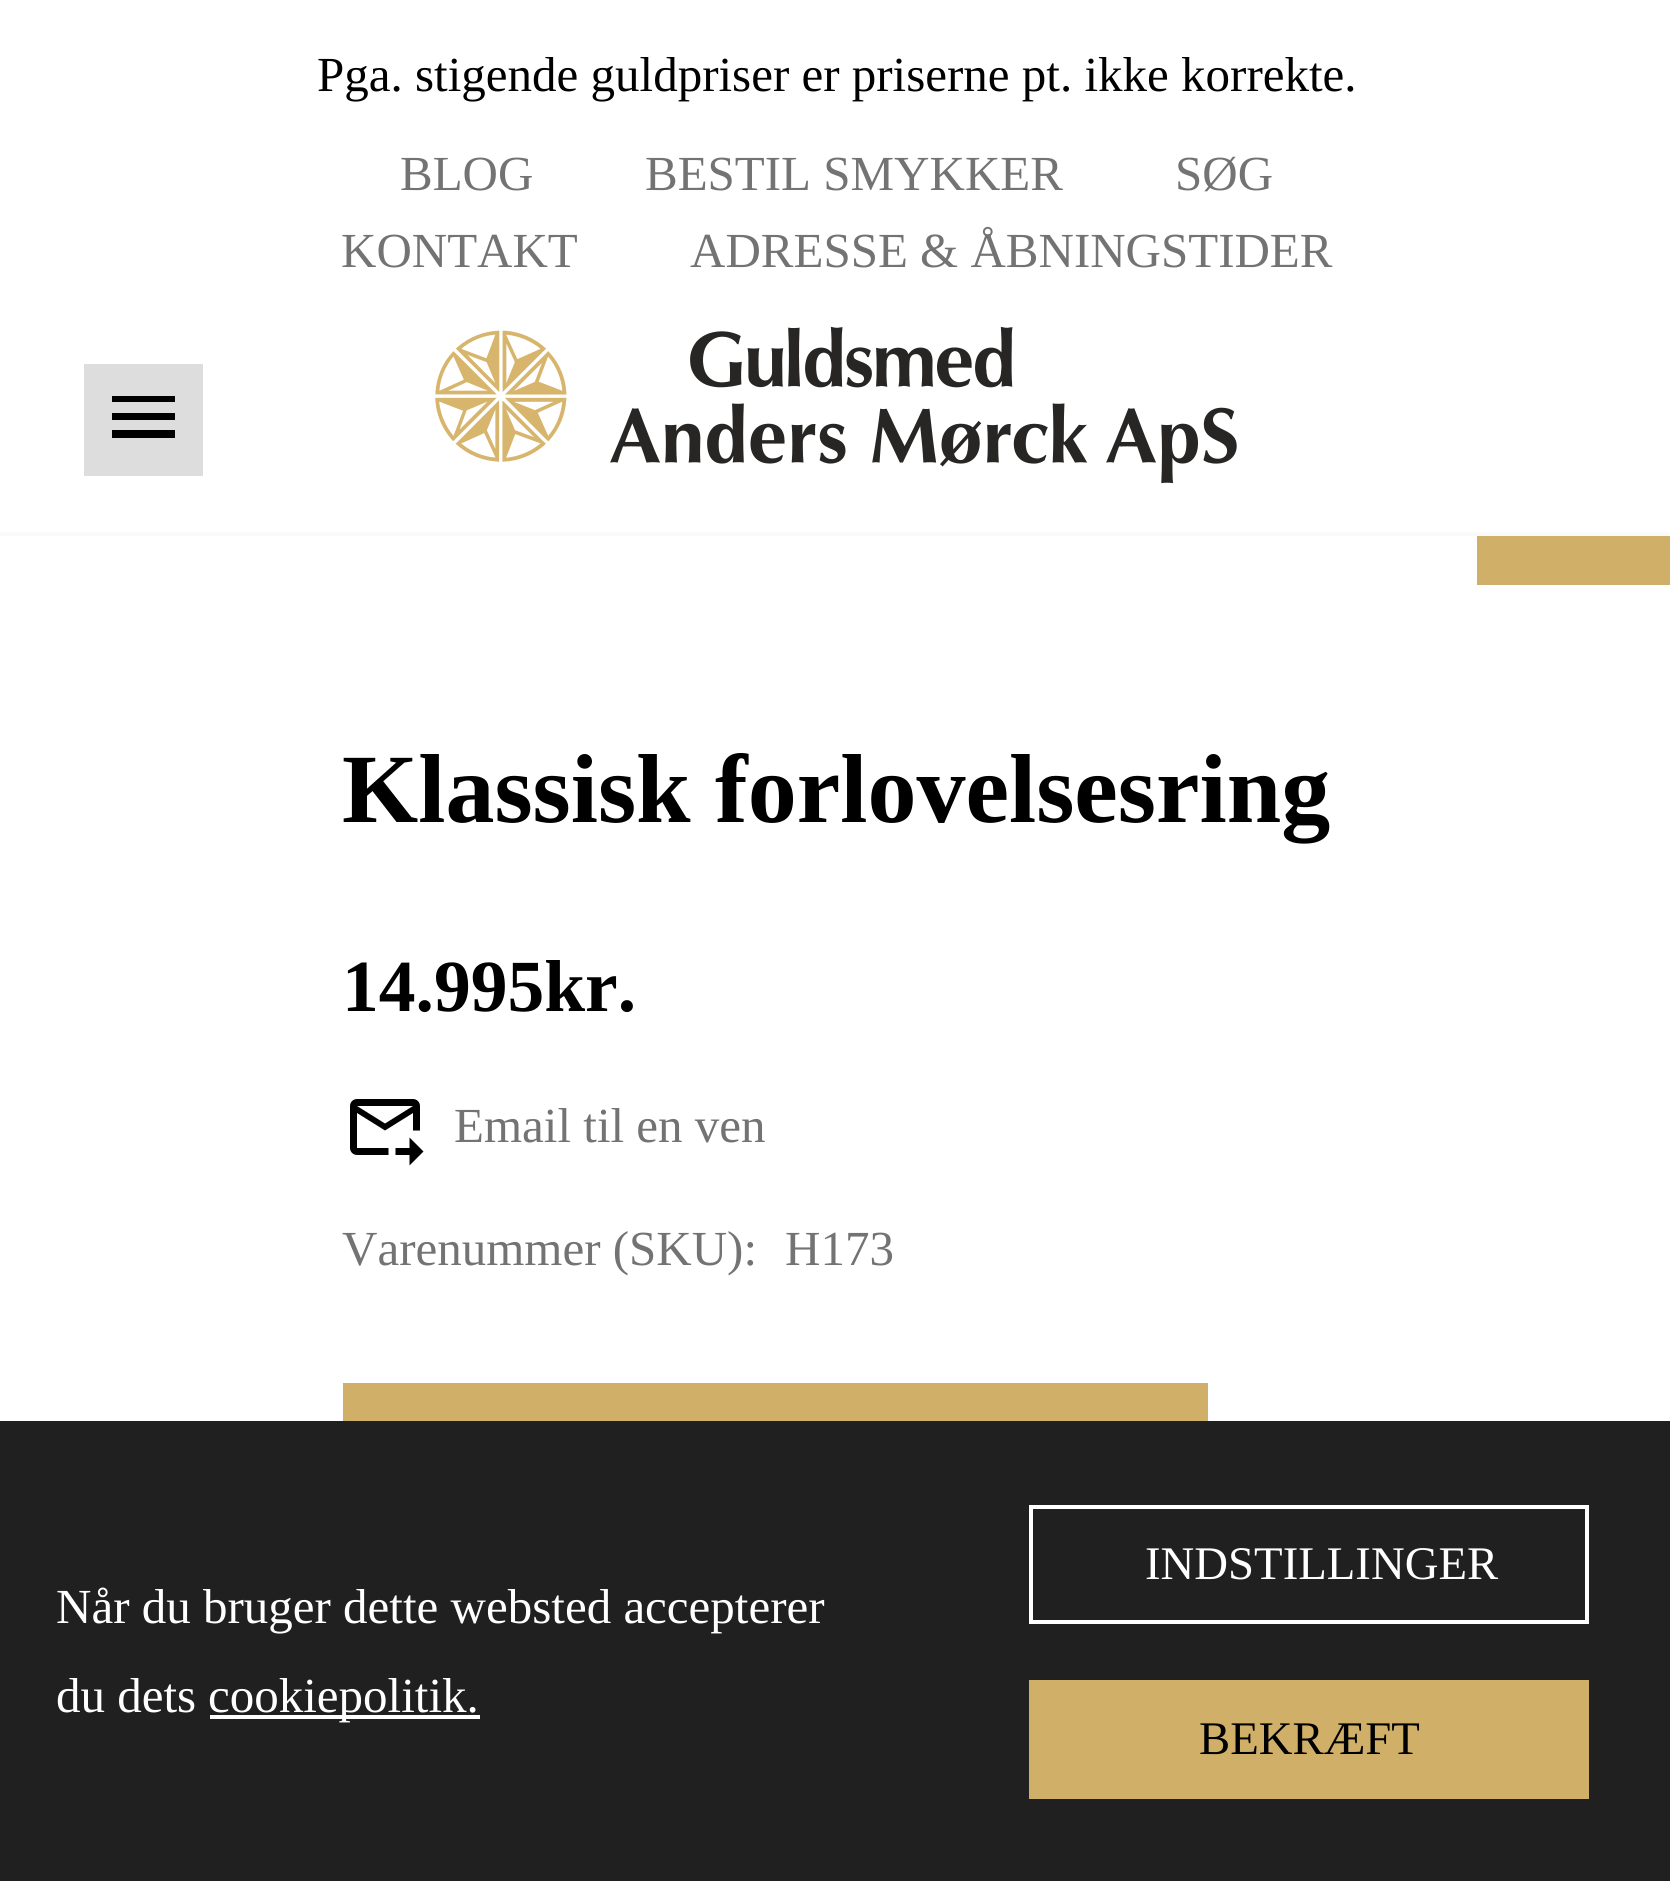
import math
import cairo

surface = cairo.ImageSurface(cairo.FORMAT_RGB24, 1670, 1881)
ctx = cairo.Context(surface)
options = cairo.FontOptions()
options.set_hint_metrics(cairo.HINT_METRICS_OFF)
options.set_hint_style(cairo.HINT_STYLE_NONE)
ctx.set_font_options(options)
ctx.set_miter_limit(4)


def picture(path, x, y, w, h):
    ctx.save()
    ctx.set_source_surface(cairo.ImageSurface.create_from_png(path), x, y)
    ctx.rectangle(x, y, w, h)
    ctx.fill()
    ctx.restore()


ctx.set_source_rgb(1, 1, 1)
ctx.paint()
ctx.set_source_rgb(0.98, 0.98, 0.98)
ctx.rectangle(0, 532, 1670, 4)
ctx.fill()
ctx.select_font_face("Liberation Serif")
ctx.set_font_size(49)
ctx.set_source_rgb(0, 0, 0)
ctx.move_to(317, 91)
ctx.show_text("Pga. stigende guldpriser er priserne pt. ikke korrekte.")
ctx.set_source_rgb(0.451, 0.451, 0.451)
ctx.move_to(400, 190)
ctx.show_text("BLOG")
ctx.move_to(645, 190)
ctx.show_text("BESTIL SMYKKER")
ctx.move_to(1175, 190)
ctx.show_text("SØG")
ctx.move_to(341, 267)
ctx.show_text("KONTAKT")
ctx.move_to(690, 267)
ctx.show_text("ADRESSE & ÅBNINGSTIDER")
ctx.set_source_rgb(0.867, 0.867, 0.867)
ctx.rectangle(84, 364, 119, 112)
ctx.fill()
ctx.set_source_rgb(0, 0, 0)
ctx.new_path()
ctx.move_to(112, 438)
ctx.line_to(175, 438)
ctx.line_to(175, 430)
ctx.line_to(112, 430)
ctx.close_path()
ctx.move_to(112, 420)
ctx.line_to(175, 420)
ctx.line_to(175, 413)
ctx.line_to(112, 413)
ctx.close_path()
ctx.move_to(112, 396)
ctx.line_to(112, 402)
ctx.line_to(175, 402)
ctx.line_to(175, 396)
ctx.close_path()
ctx.fill()
picture("img1.png", 435, 326, 802, 158)
ctx.set_source_rgb(0.816, 0.69, 0.408)
ctx.rectangle(1477, 536, 193, 49)
ctx.fill()
ctx.select_font_face("Liberation Serif", cairo.FONT_SLANT_NORMAL, cairo.FONT_WEIGHT_BOLD)
ctx.set_font_size(98)
ctx.set_source_rgb(0, 0, 0)
ctx.move_to(342, 822)
ctx.show_text("Klassisk forlovelsesring")
ctx.set_font_size(73.5)
ctx.move_to(342, 1011)
ctx.show_text("14.995kr.")
picture("img2.png", 350, 1099, 74, 67)
ctx.select_font_face("Liberation Serif")
ctx.set_font_size(49)
ctx.set_source_rgb(0.451, 0.451, 0.451)
ctx.move_to(454, 1142)
ctx.show_text("Email til en ven")
ctx.move_to(342, 1265)
ctx.show_text("Varenummer (SKU):")
ctx.move_to(785, 1265)
ctx.show_text("H173")
ctx.set_source_rgb(0.816, 0.69, 0.408)
ctx.rectangle(343, 1383, 865, 38)
ctx.fill()
ctx.set_source_rgb(0.125, 0.125, 0.125)
ctx.rectangle(0, 1421, 1670, 460)
ctx.fill()
ctx.set_source_rgb(1, 1, 1)
ctx.move_to(56, 1623)
ctx.show_text("Når du bruger dette websted accepterer")
ctx.move_to(56, 1712)
ctx.show_text("du dets")
ctx.rectangle(210, 1715, 270, 4)
ctx.fill()
ctx.move_to(208, 1712)
ctx.show_text("cookiepolitik.")
ctx.rectangle(1031, 1507, 556, 115)
ctx.set_line_width(4)
ctx.stroke()
ctx.set_font_size(46.75)
ctx.move_to(1145, 1579)
ctx.show_text("INDSTILLINGER")
ctx.set_source_rgb(0.816, 0.69, 0.408)
ctx.rectangle(1029, 1680, 560, 119)
ctx.fill()
ctx.set_source_rgb(0, 0, 0)
ctx.move_to(1199, 1754)
ctx.show_text("BEKRÆFT")
surface.write_to_png("page.png")
